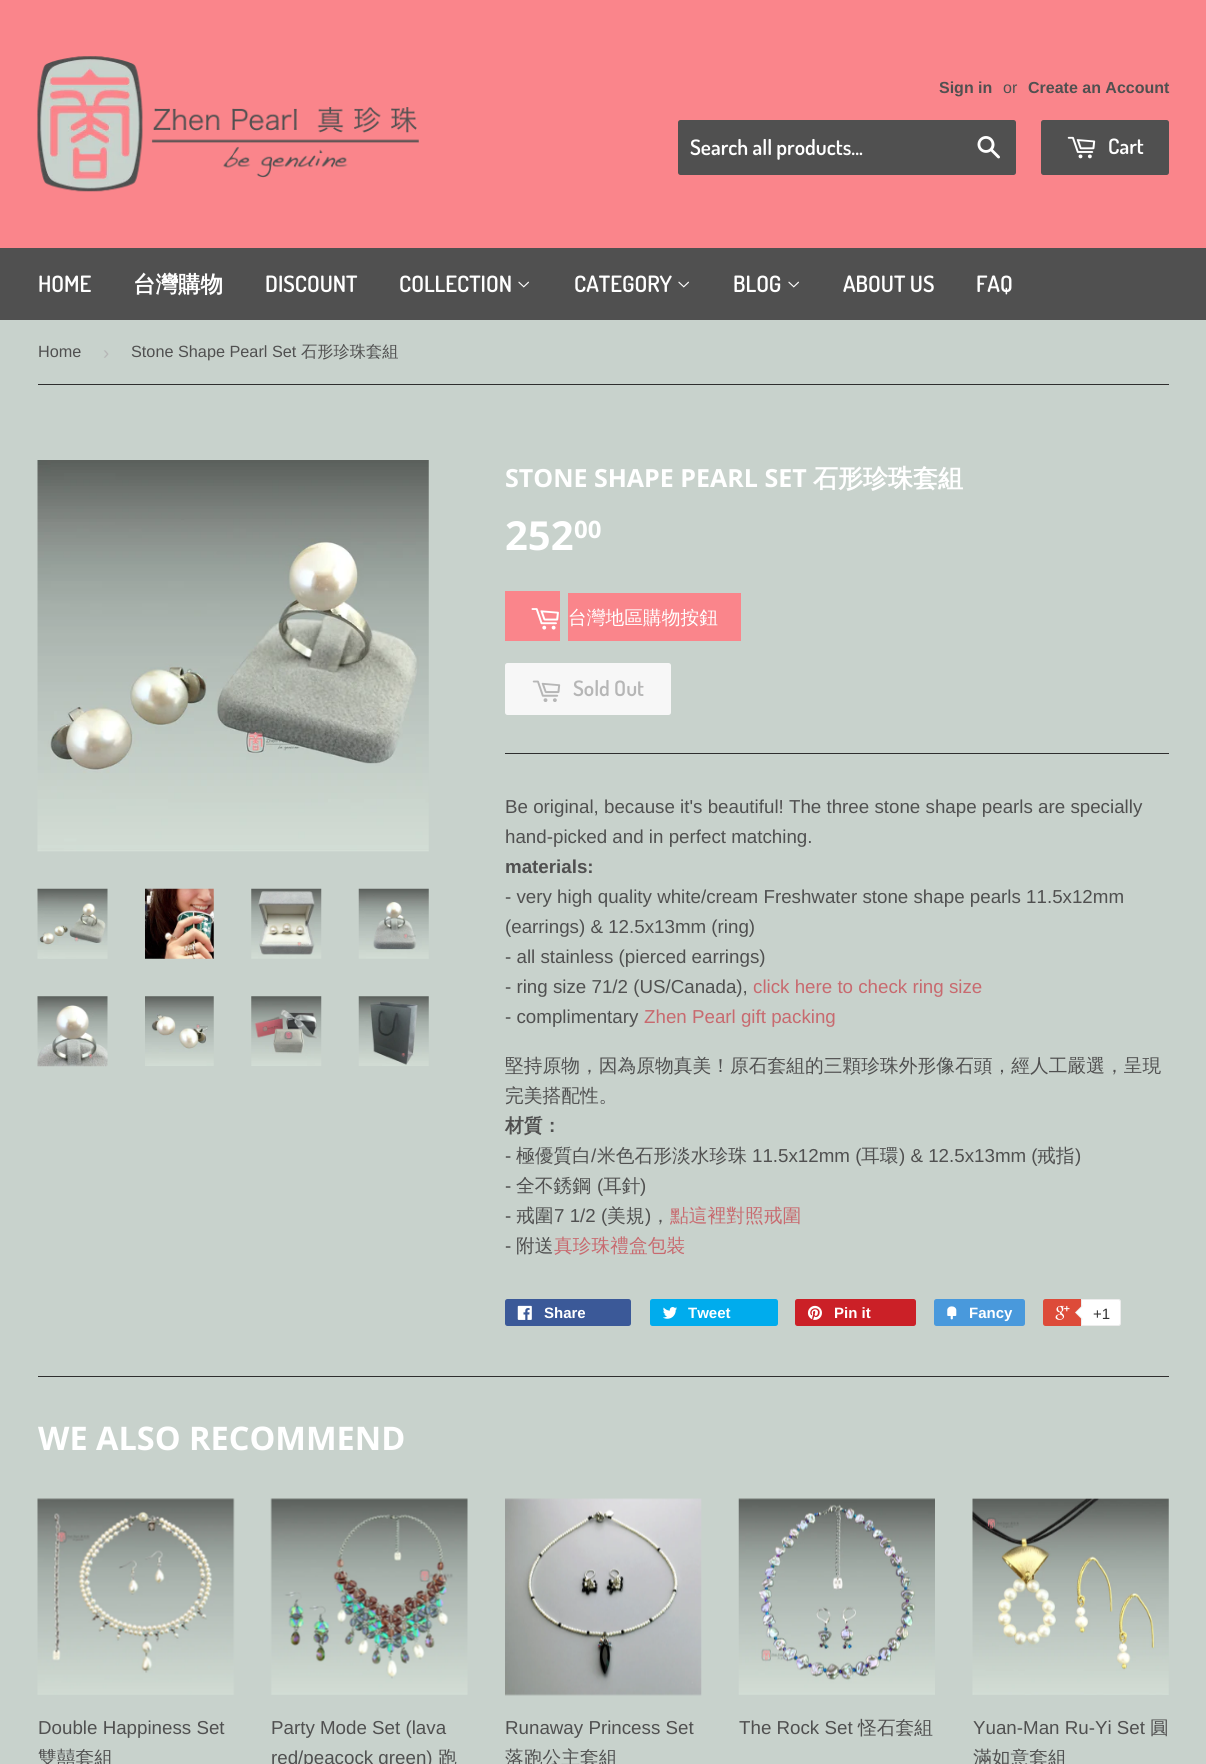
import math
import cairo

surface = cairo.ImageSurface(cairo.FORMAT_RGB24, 1206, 1764)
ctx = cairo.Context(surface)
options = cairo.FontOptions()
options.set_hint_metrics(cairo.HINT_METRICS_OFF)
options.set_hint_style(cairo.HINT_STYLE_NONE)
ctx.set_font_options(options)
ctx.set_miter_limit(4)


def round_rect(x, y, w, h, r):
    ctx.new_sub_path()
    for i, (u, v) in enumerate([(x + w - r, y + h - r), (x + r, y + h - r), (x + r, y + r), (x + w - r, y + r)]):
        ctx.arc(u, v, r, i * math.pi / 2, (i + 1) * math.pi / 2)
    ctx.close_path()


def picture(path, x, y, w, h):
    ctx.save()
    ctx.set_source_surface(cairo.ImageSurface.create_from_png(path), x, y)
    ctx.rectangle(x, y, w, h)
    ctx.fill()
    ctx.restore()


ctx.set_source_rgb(0.784, 0.824, 0.8)
ctx.paint()
ctx.set_source_rgb(0.98, 0.522, 0.545)
ctx.rectangle(0, 0, 1206, 248)
ctx.fill()
picture("img1.png", 37, 56, 382, 136)
ctx.select_font_face("Liberation Sans", cairo.FONT_SLANT_NORMAL, cairo.FONT_WEIGHT_BOLD)
ctx.set_font_size(16)
ctx.set_source_rgb(0.314, 0.314, 0.314)
ctx.move_to(939, 93)
ctx.show_text("Sign in")
ctx.select_font_face("Liberation Sans")
ctx.move_to(1003, 93)
ctx.show_text("or")
ctx.select_font_face("Liberation Sans", cairo.FONT_SLANT_NORMAL, cairo.FONT_WEIGHT_BOLD)
ctx.move_to(1028, 93)
ctx.show_text("Create an Account")
round_rect(678, 120, 338, 55, 2.5)
ctx.fill()
ctx.select_font_face("Dosis SemiBold")
ctx.set_font_size(21.25)
ctx.set_source_rgb(1, 1, 1)
ctx.move_to(690, 155)
ctx.show_text("Search all products...")
picture("img2.png", 977, 136, 23, 23)
ctx.set_source_rgb(0.314, 0.314, 0.314)
round_rect(1041, 120, 128, 55, 2.5)
ctx.fill()
picture("img3.png", 1067, 136, 29, 23)
ctx.set_source_rgb(1, 1, 1)
ctx.move_to(1108, 154)
ctx.show_text("Cart")
ctx.set_source_rgb(0.314, 0.314, 0.314)
ctx.rectangle(0, 248, 1206, 72)
ctx.fill()
ctx.set_font_size(22.5)
ctx.set_source_rgb(1, 1, 1)
ctx.move_to(38, 292)
ctx.show_text("HOME")
ctx.select_font_face("WenQuanYi Zen Hei", cairo.FONT_SLANT_NORMAL, cairo.FONT_WEIGHT_BOLD)
ctx.move_to(133, 292)
ctx.show_text("台灣購物")
ctx.select_font_face("Dosis SemiBold")
ctx.move_to(265, 292)
ctx.show_text("DISCOUNT")
ctx.move_to(399, 292)
ctx.show_text("COLLECTION")
picture("img4.png", 518, 281, 11, 7)
ctx.move_to(574, 292)
ctx.show_text("CATEGORY")
picture("img4.png", 678, 281, 11, 7)
ctx.move_to(733, 292)
ctx.show_text("BLOG")
picture("img4.png", 788, 281, 11, 7)
ctx.move_to(843, 292)
ctx.show_text("ABOUT US")
ctx.move_to(976, 292)
ctx.show_text("FAQ")
ctx.set_source_rgb(0.18, 0.18, 0.18)
ctx.rectangle(38, 384, 1131, 1)
ctx.fill()
ctx.select_font_face("Liberation Sans")
ctx.set_font_size(16.25)
ctx.set_source_rgb(0.314, 0.314, 0.314)
ctx.move_to(38, 357)
ctx.show_text("Home")
ctx.set_font_size(18.75)
ctx.set_source_rgb(0.714, 0.714, 0.714)
ctx.move_to(103, 359)
ctx.show_text("›")
ctx.set_font_size(16.25)
ctx.set_source_rgb(0.314, 0.314, 0.314)
ctx.move_to(131, 357)
ctx.show_text("Stone Shape Pearl Set")
ctx.select_font_face("WenQuanYi Zen Hei Medium")
ctx.move_to(301, 357)
ctx.show_text("石形珍珠套組")
picture("img5.png", 37, 460, 392, 392)
picture("img6.png", 37, 888, 71, 71)
picture("img7.png", 145, 888, 69, 71)
picture("img8.png", 251, 888, 71, 71)
picture("img9.png", 358, 888, 71, 71)
picture("img10.png", 37, 996, 71, 71)
picture("img11.png", 145, 996, 69, 70)
picture("img12.png", 251, 996, 71, 70)
picture("img13.png", 358, 996, 71, 70)
ctx.select_font_face("Open Sans", cairo.FONT_SLANT_NORMAL, cairo.FONT_WEIGHT_BOLD)
ctx.set_font_size(25)
ctx.set_source_rgb(1, 1, 1)
ctx.move_to(505, 487)
ctx.show_text("STONE SHAPE PEARL SET")
ctx.select_font_face("WenQuanYi Zen Hei", cairo.FONT_SLANT_NORMAL, cairo.FONT_WEIGHT_BOLD)
ctx.move_to(813, 487)
ctx.show_text("石形珍珠套組")
ctx.select_font_face("Open Sans", cairo.FONT_SLANT_NORMAL, cairo.FONT_WEIGHT_BOLD)
ctx.set_font_size(40)
ctx.move_to(505, 550)
ctx.show_text("252")
ctx.set_font_size(24)
ctx.move_to(574, 538)
ctx.show_text("00")
ctx.set_source_rgb(0.98, 0.522, 0.545)
ctx.rectangle(505, 591, 55, 50)
ctx.fill()
picture("img14.png", 531, 608, 28, 22)
ctx.rectangle(568, 593, 173, 48)
ctx.fill()
ctx.select_font_face("WenQuanYi Zen Hei Medium")
ctx.set_font_size(18.75)
ctx.set_source_rgb(1, 1, 1)
ctx.move_to(568, 624)
ctx.show_text("台灣地區購物按鈕")
ctx.set_source_rgb(0.965, 0.965, 0.965)
round_rect(505, 663, 166, 52, 2.5)
ctx.fill()
picture("img15.png", 532, 680, 29, 22)
ctx.select_font_face("Dosis SemiBold")
ctx.set_font_size(21.25)
ctx.set_source_rgb(0.714, 0.714, 0.714)
ctx.move_to(573, 696)
ctx.show_text("Sold Out")
ctx.set_source_rgb(0.18, 0.18, 0.18)
ctx.rectangle(505, 753, 664, 1)
ctx.fill()
ctx.select_font_face("Liberation Sans")
ctx.set_font_size(18.75)
ctx.set_source_rgb(0.314, 0.314, 0.314)
ctx.move_to(505, 813)
ctx.show_text("Be original, because it's beautiful! The three stone shape pearls are specially")
ctx.move_to(505, 843)
ctx.show_text("hand-picked and in perfect matching.")
ctx.select_font_face("Liberation Sans", cairo.FONT_SLANT_NORMAL, cairo.FONT_WEIGHT_BOLD)
ctx.move_to(505, 873)
ctx.show_text("materials:")
ctx.select_font_face("Liberation Sans")
ctx.move_to(505, 903)
ctx.show_text("- very high quality white/cream Freshwater stone shape pearls 11.5x12mm")
ctx.move_to(505, 933)
ctx.show_text("(earrings) & 12.5x13mm (ring)")
ctx.move_to(505, 963)
ctx.show_text("- all stainless (pierced earrings)")
ctx.move_to(505, 993)
ctx.show_text("- ring size 71/2 (US/Canada),")
ctx.set_source_rgb(0.784, 0.416, 0.435)
ctx.move_to(753, 993)
ctx.show_text("click here to check ring size")
ctx.set_source_rgb(0.314, 0.314, 0.314)
ctx.move_to(505, 1023)
ctx.show_text("- complimentary")
ctx.set_source_rgb(0.784, 0.416, 0.435)
ctx.move_to(644, 1023)
ctx.show_text("Zhen Pearl gift packing")
ctx.select_font_face("WenQuanYi Zen Hei Medium")
ctx.set_source_rgb(0.314, 0.314, 0.314)
ctx.move_to(505, 1072)
ctx.show_text("堅持原物，因為原物真美！原石套組的三顆珍珠外形像石頭，經人工嚴選，呈現")
ctx.move_to(505, 1102)
ctx.show_text("完美搭配性。")
ctx.select_font_face("WenQuanYi Zen Hei", cairo.FONT_SLANT_NORMAL, cairo.FONT_WEIGHT_BOLD)
ctx.move_to(505, 1132)
ctx.show_text("材質：")
ctx.select_font_face("Liberation Sans")
ctx.move_to(505, 1162)
ctx.show_text("-")
ctx.select_font_face("WenQuanYi Zen Hei Medium")
ctx.move_to(516, 1162)
ctx.show_text("極優質白")
ctx.select_font_face("Liberation Sans")
ctx.move_to(591, 1162)
ctx.show_text("/")
ctx.select_font_face("WenQuanYi Zen Hei Medium")
ctx.move_to(597, 1162)
ctx.show_text("米色石形淡水珍珠")
ctx.select_font_face("Liberation Sans")
ctx.move_to(752, 1162)
ctx.show_text("11.5x12mm (")
ctx.select_font_face("WenQuanYi Zen Hei Medium")
ctx.move_to(861, 1162)
ctx.show_text("耳環")
ctx.select_font_face("Liberation Sans")
ctx.move_to(899, 1162)
ctx.show_text(") & 12.5x13mm (")
ctx.select_font_face("WenQuanYi Zen Hei Medium")
ctx.move_to(1037, 1162)
ctx.show_text("戒指")
ctx.select_font_face("Liberation Sans")
ctx.move_to(1075, 1162)
ctx.show_text(")")
ctx.move_to(505, 1192)
ctx.show_text("-")
ctx.select_font_face("WenQuanYi Zen Hei Medium")
ctx.move_to(516, 1192)
ctx.show_text("全不銹鋼")
ctx.select_font_face("Liberation Sans")
ctx.move_to(597, 1192)
ctx.show_text("(")
ctx.select_font_face("WenQuanYi Zen Hei Medium")
ctx.move_to(603, 1192)
ctx.show_text("耳針")
ctx.select_font_face("Liberation Sans")
ctx.move_to(640, 1192)
ctx.show_text(")")
ctx.move_to(505, 1222)
ctx.show_text("-")
ctx.select_font_face("WenQuanYi Zen Hei Medium")
ctx.move_to(516, 1222)
ctx.show_text("戒圍")
ctx.select_font_face("Liberation Sans")
ctx.move_to(554, 1222)
ctx.show_text("7 1/2 (")
ctx.select_font_face("WenQuanYi Zen Hei Medium")
ctx.move_to(607, 1222)
ctx.show_text("美規")
ctx.select_font_face("Liberation Sans")
ctx.move_to(645, 1222)
ctx.show_text(")")
ctx.select_font_face("WenQuanYi Zen Hei Medium")
ctx.set_source_rgb(0.784, 0.416, 0.435)
ctx.move_to(670, 1222)
ctx.show_text("點這裡對照戒圍")
ctx.set_source_rgb(0.314, 0.314, 0.314)
ctx.move_to(651, 1222)
ctx.show_text("，")
ctx.select_font_face("Liberation Sans")
ctx.move_to(505, 1252)
ctx.show_text("-")
ctx.select_font_face("WenQuanYi Zen Hei Medium")
ctx.move_to(516, 1252)
ctx.show_text("附送")
ctx.set_source_rgb(0.784, 0.416, 0.435)
ctx.move_to(554, 1252)
ctx.show_text("真珍珠禮盒包裝")
ctx.set_source_rgb(0.231, 0.349, 0.596)
round_rect(505, 1299, 126, 27, 2.5)
ctx.fill()
picture("img16.png", 517, 1305, 15, 15)
ctx.select_font_face("Liberation Sans", cairo.FONT_SLANT_NORMAL, cairo.FONT_WEIGHT_BOLD)
ctx.set_font_size(15)
ctx.set_source_rgb(1, 1, 1)
ctx.move_to(544, 1318)
ctx.show_text("Share")
ctx.set_source_rgb(0, 0.675, 0.929)
round_rect(650, 1299, 128, 27, 2.5)
ctx.fill()
picture("img17.png", 663, 1307, 14, 12)
ctx.set_source_rgb(1, 1, 1)
ctx.move_to(688, 1318)
ctx.show_text("Tweet")
ctx.set_source_rgb(0.796, 0.125, 0.153)
round_rect(795, 1299, 121, 27, 2.5)
ctx.fill()
picture("img18.png", 807, 1305, 15, 15)
ctx.set_source_rgb(1, 1, 1)
ctx.move_to(834, 1318)
ctx.show_text("Pin it")
ctx.set_source_rgb(0.286, 0.6, 0.863)
round_rect(934, 1299, 91, 27, 2.5)
ctx.fill()
picture("img19.png", 947, 1306, 10, 14)
ctx.set_source_rgb(1, 1, 1)
ctx.move_to(969, 1318)
ctx.show_text("Fancy")
ctx.set_source_rgb(0.867, 0.294, 0.224)
round_rect(1043, 1299, 76, 27, 2.5)
ctx.fill()
picture("img20.png", 1055, 1305, 15, 15)
ctx.set_source_rgb(1, 1, 1)
ctx.new_path()
ctx.move_to(1081.5, 1299.5)
ctx.line_to(1118.5, 1299.5)
ctx.curve_to(1119.5, 1299.5, 1120.5, 1300.5, 1120.5, 1301.5)
ctx.line_to(1120.5, 1323.5)
ctx.curve_to(1120.5, 1324.5, 1119.5, 1325.5, 1118.5, 1325.5)
ctx.line_to(1081.5, 1325.5)
ctx.close_path()
ctx.fill_preserve()
ctx.set_source_rgb(0.925, 0.925, 0.925)
ctx.set_line_width(1)
ctx.stroke()
ctx.new_path()
ctx.move_to(1082.5, 1305)
ctx.line_to(1082.5, 1320)
ctx.line_to(1075, 1312.5)
ctx.close_path()
ctx.fill()
ctx.set_source_rgb(1, 1, 1)
ctx.new_path()
ctx.move_to(1084, 1305)
ctx.line_to(1084, 1320)
ctx.line_to(1076, 1312.5)
ctx.close_path()
ctx.fill()
ctx.select_font_face("Liberation Sans")
ctx.set_source_rgb(0.2, 0.2, 0.2)
ctx.move_to(1093, 1319)
ctx.show_text("+1")
ctx.set_source_rgb(0.18, 0.18, 0.18)
ctx.rectangle(38, 1376, 1131, 1)
ctx.fill()
ctx.select_font_face("Open Sans", cairo.FONT_SLANT_NORMAL, cairo.FONT_WEIGHT_BOLD)
ctx.set_font_size(32.5)
ctx.set_source_rgb(1, 1, 1)
ctx.move_to(38, 1450)
ctx.show_text("WE ALSO RECOMMEND")
picture("img21.png", 37, 1498, 198, 197)
ctx.select_font_face("Liberation Sans")
ctx.set_font_size(18.75)
ctx.set_source_rgb(0.314, 0.314, 0.314)
ctx.move_to(38, 1734)
ctx.show_text("Double Happiness Set")
ctx.select_font_face("WenQuanYi Zen Hei Medium")
ctx.move_to(38, 1764)
ctx.show_text("雙囍套組")
picture("img22.png", 270, 1498, 198, 197)
ctx.select_font_face("Liberation Sans")
ctx.move_to(271, 1734)
ctx.show_text("Party Mode Set (lava")
ctx.move_to(271, 1764)
ctx.show_text("red/peacock green)")
ctx.select_font_face("WenQuanYi Zen Hei Medium")
ctx.move_to(438, 1764)
ctx.show_text("跑")
picture("img23.png", 505, 1498, 197, 198)
ctx.select_font_face("Liberation Sans")
ctx.move_to(505, 1734)
ctx.show_text("Runaway Princess Set")
ctx.select_font_face("WenQuanYi Zen Hei Medium")
ctx.move_to(505, 1764)
ctx.show_text("落跑公主套組")
picture("img24.png", 738, 1498, 197, 197)
ctx.select_font_face("Liberation Sans")
ctx.move_to(739, 1734)
ctx.show_text("The Rock Set")
ctx.select_font_face("WenQuanYi Zen Hei Medium")
ctx.move_to(858, 1734)
ctx.show_text("怪石套組")
picture("img25.png", 972, 1498, 197, 197)
ctx.select_font_face("Liberation Sans")
ctx.move_to(973, 1734)
ctx.show_text("Yuan-Man Ru-Yi Set")
ctx.select_font_face("WenQuanYi Zen Hei Medium")
ctx.move_to(1150, 1734)
ctx.show_text("圓")
ctx.move_to(973, 1764)
ctx.show_text("滿如意套組")
surface.write_to_png("page.png")
